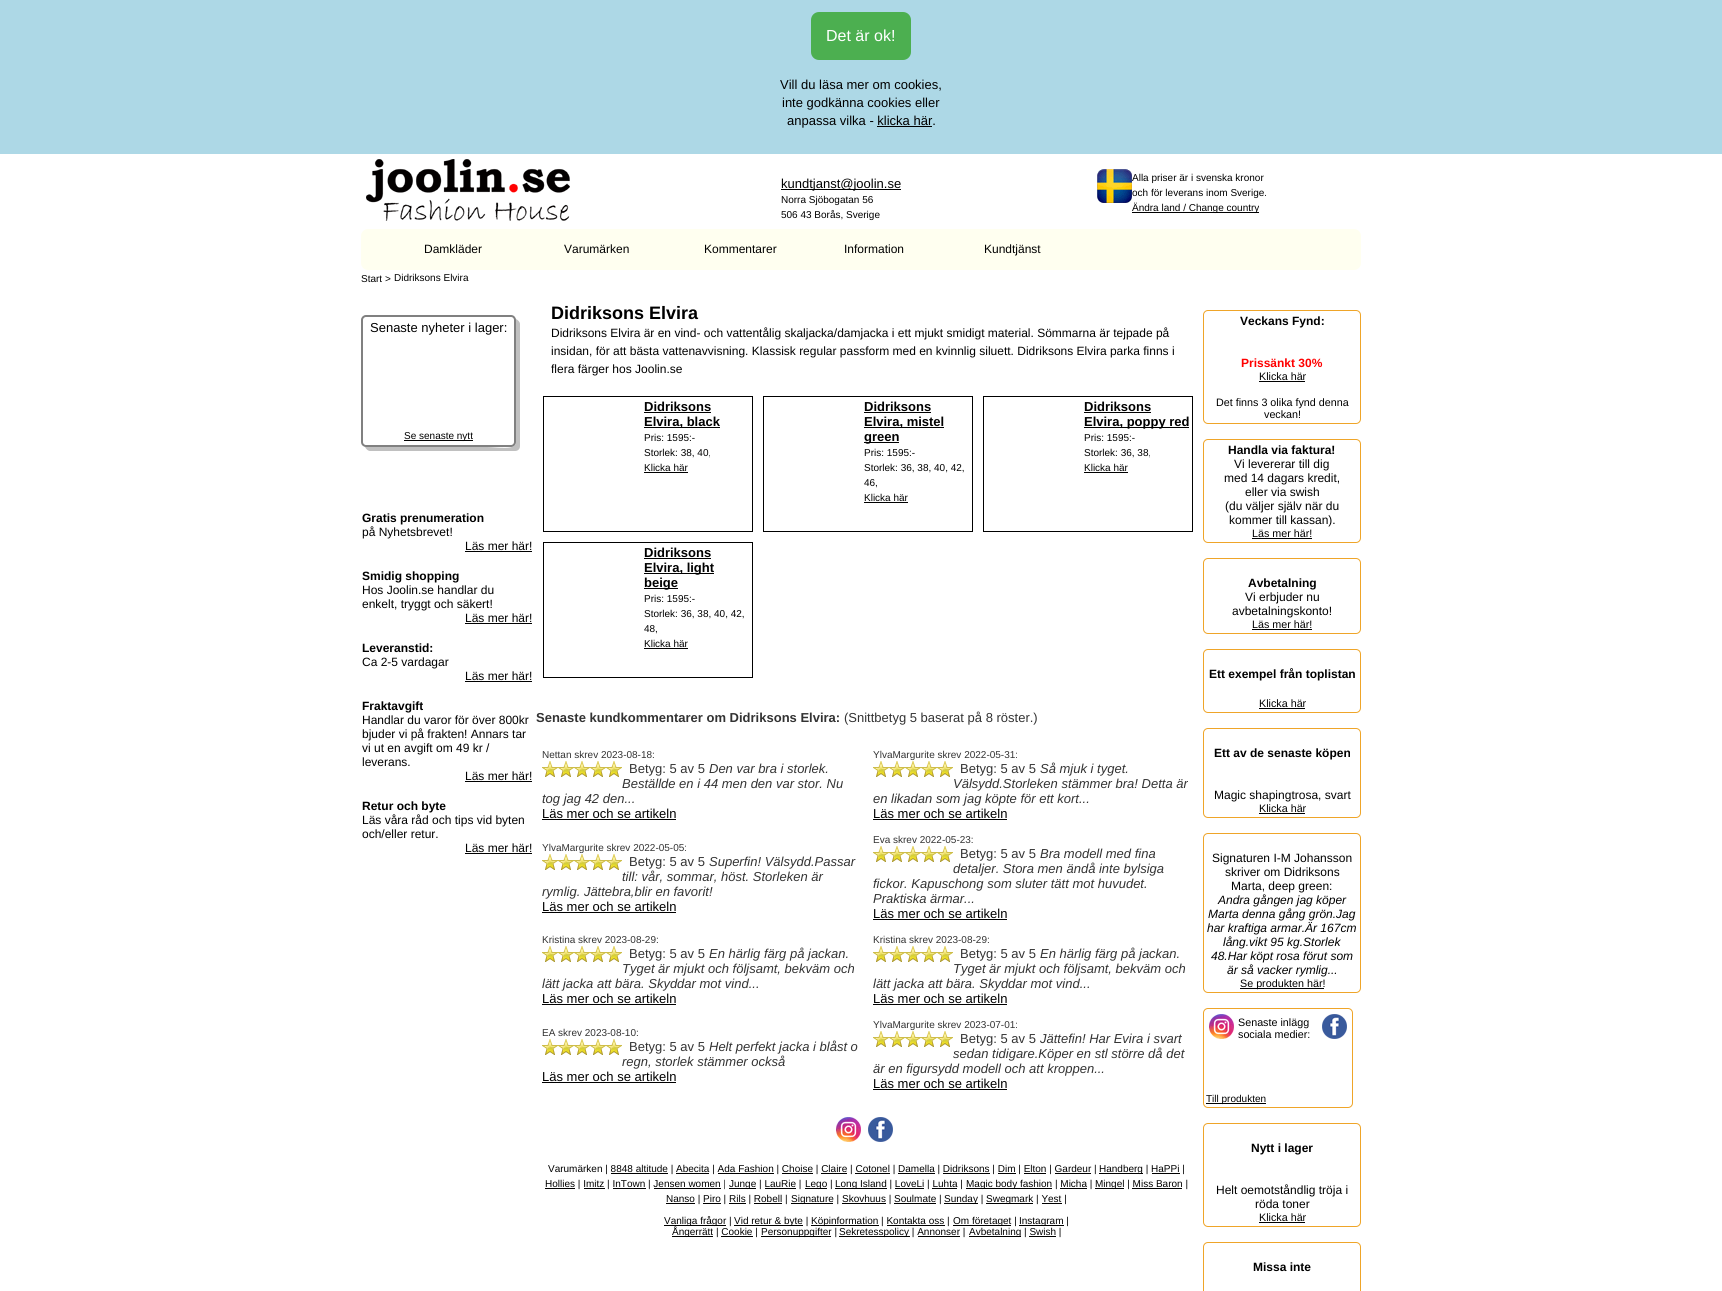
import math
import cairo

surface = cairo.ImageSurface(cairo.FORMAT_RGB24, 1722, 1291)
ctx = cairo.Context(surface)
options = cairo.FontOptions()
options.set_hint_metrics(cairo.HINT_METRICS_OFF)
options.set_hint_style(cairo.HINT_STYLE_NONE)
ctx.set_font_options(options)
ctx.set_miter_limit(4)


def round_rect(x, y, w, h, r):
    ctx.new_sub_path()
    for i, (u, v) in enumerate([(x + w - r, y + h - r), (x + r, y + h - r), (x + r, y + r), (x + w - r, y + r)]):
        ctx.arc(u, v, r, i * math.pi / 2, (i + 1) * math.pi / 2)
    ctx.close_path()


def picture(path, x, y, w, h):
    ctx.save()
    ctx.set_source_surface(cairo.ImageSurface.create_from_png(path), x, y)
    ctx.rectangle(x, y, w, h)
    ctx.fill()
    ctx.restore()


ctx.set_source_rgb(1, 1, 1)
ctx.paint()
ctx.set_source_rgb(0.678, 0.847, 0.902)
ctx.rectangle(0, 0, 1722, 154)
ctx.fill()
ctx.set_source_rgb(0.298, 0.686, 0.314)
round_rect(811, 12, 100, 48, 8)
ctx.fill()
ctx.select_font_face("Liberation Sans")
ctx.set_font_size(16)
ctx.set_source_rgb(1, 1, 1)
ctx.move_to(826, 41)
ctx.show_text("Det är ok!")
ctx.set_font_size(13)
ctx.set_source_rgb(0, 0, 0)
ctx.move_to(780, 89)
ctx.show_text("Vill du läsa mer om cookies,")
ctx.move_to(782, 107)
ctx.show_text("inte godkänna cookies eller")
ctx.move_to(787, 125)
ctx.show_text("anpassa vilka - klicka här.")
ctx.rectangle(877, 126, 55, 1)
ctx.fill()
picture("img1.png", 366, 159, 204, 62)
ctx.rectangle(781, 189, 120, 1)
ctx.fill()
ctx.move_to(781, 188)
ctx.show_text("kundtjanst@joolin.se")
ctx.set_font_size(10)
ctx.move_to(781, 203)
ctx.show_text("Norra Sjöbogatan 56")
ctx.move_to(781, 218)
ctx.show_text("506 43 Borås, Sverige")
picture("img2.png", 1097, 169, 35, 34)
ctx.move_to(1132, 181)
ctx.show_text("Alla priser är i svenska kronor")
ctx.move_to(1132, 196)
ctx.show_text("och för leverans inom Sverige.")
ctx.rectangle(1132, 212, 127, 1)
ctx.fill()
ctx.move_to(1132, 211)
ctx.show_text("Ändra land / Change country")
ctx.set_source_rgb(1, 1, 0.941)
round_rect(361, 229, 1000, 41, 7)
ctx.fill()
ctx.set_font_size(12)
ctx.set_source_rgb(0, 0, 0)
ctx.move_to(424, 253)
ctx.show_text("Damkläder")
ctx.move_to(564, 253)
ctx.show_text("Varumärken")
ctx.move_to(704, 253)
ctx.show_text("Kommentarer")
ctx.move_to(844, 253)
ctx.show_text("Information")
ctx.move_to(984, 253)
ctx.show_text("Kundtjänst")
ctx.set_font_size(10)
ctx.move_to(361, 282)
ctx.show_text("Start >")
ctx.move_to(394, 281)
ctx.show_text("Didriksons Elvira")
ctx.set_source_rgb(0.753, 0.753, 0.753)
ctx.new_path()
ctx.move_to(365, 447)
ctx.curve_to(366, 449, 368, 451, 370, 451)
ctx.line_to(515, 451)
ctx.curve_to(518, 451, 520, 449, 520, 446)
ctx.line_to(520, 324)
ctx.curve_to(520, 322, 518, 320, 516, 319)
ctx.line_to(516, 442)
ctx.curve_to(516, 451, 497, 447, 487, 447)
ctx.close_path()
ctx.fill()
ctx.set_source_rgb(1, 1, 1)
round_rect(362, 316, 153, 130, 4)
ctx.fill_preserve()
ctx.set_source_rgb(0.502, 0.502, 0.502)
ctx.stroke()
ctx.set_font_size(13)
ctx.set_source_rgb(0, 0, 0)
ctx.move_to(370, 332)
ctx.show_text("Senaste nyheter i lager:")
ctx.rectangle(404, 440, 69, 1)
ctx.fill()
ctx.set_font_size(10)
ctx.move_to(404, 439)
ctx.show_text("Se senaste nytt")
ctx.select_font_face("Liberation Sans", cairo.FONT_SLANT_NORMAL, cairo.FONT_WEIGHT_BOLD)
ctx.set_font_size(12)
ctx.move_to(362, 522)
ctx.show_text("Gratis prenumeration")
ctx.select_font_face("Liberation Sans")
ctx.move_to(362, 536)
ctx.show_text("på Nyhetsbrevet!")
ctx.move_to(465, 550)
ctx.show_text("Läs mer här!")
ctx.rectangle(465, 551, 67, 1)
ctx.fill()
ctx.select_font_face("Liberation Sans", cairo.FONT_SLANT_NORMAL, cairo.FONT_WEIGHT_BOLD)
ctx.move_to(362, 580)
ctx.show_text("Smidig shopping")
ctx.select_font_face("Liberation Sans")
ctx.move_to(362, 594)
ctx.show_text("Hos Joolin.se handlar du")
ctx.move_to(362, 608)
ctx.show_text("enkelt, tryggt och säkert!")
ctx.move_to(465, 622)
ctx.show_text("Läs mer här!")
ctx.rectangle(465, 623, 67, 1)
ctx.fill()
ctx.select_font_face("Liberation Sans", cairo.FONT_SLANT_NORMAL, cairo.FONT_WEIGHT_BOLD)
ctx.move_to(362, 652)
ctx.show_text("Leveranstid:")
ctx.select_font_face("Liberation Sans")
ctx.move_to(362, 666)
ctx.show_text("Ca 2-5 vardagar")
ctx.move_to(465, 680)
ctx.show_text("Läs mer här!")
ctx.rectangle(465, 681, 67, 1)
ctx.fill()
ctx.select_font_face("Liberation Sans", cairo.FONT_SLANT_NORMAL, cairo.FONT_WEIGHT_BOLD)
ctx.move_to(362, 710)
ctx.show_text("Fraktavgift")
ctx.select_font_face("Liberation Sans")
ctx.move_to(362, 724)
ctx.show_text("Handlar du varor för över 800kr")
ctx.move_to(362, 738)
ctx.show_text("bjuder vi på frakten! Annars tar")
ctx.move_to(362, 752)
ctx.show_text("vi ut en avgift om 49 kr /")
ctx.move_to(362, 766)
ctx.show_text("leverans.")
ctx.move_to(465, 780)
ctx.show_text("Läs mer här!")
ctx.rectangle(465, 781, 67, 1)
ctx.fill()
ctx.select_font_face("Liberation Sans", cairo.FONT_SLANT_NORMAL, cairo.FONT_WEIGHT_BOLD)
ctx.move_to(362, 810)
ctx.show_text("Retur och byte")
ctx.select_font_face("Liberation Sans")
ctx.move_to(362, 824)
ctx.show_text("Läs våra råd och tips vid byten")
ctx.move_to(362, 838)
ctx.show_text("och/eller retur.")
ctx.move_to(465, 852)
ctx.show_text("Läs mer här!")
ctx.rectangle(465, 853, 67, 1)
ctx.fill()
ctx.select_font_face("Liberation Sans", cairo.FONT_SLANT_NORMAL, cairo.FONT_WEIGHT_BOLD)
ctx.set_font_size(18)
ctx.move_to(551, 319)
ctx.show_text("Didriksons Elvira")
ctx.select_font_face("Liberation Sans")
ctx.set_font_size(12)
ctx.move_to(551, 337)
ctx.show_text("Didriksons Elvira är en vind- och vattentålig skaljacka/damjacka i ett mjukt smidigt material. Sömmarna är tejpade på")
ctx.move_to(551, 355)
ctx.show_text("insidan, för att bästa vattenavvisning. Klassisk regular passform med en kvinnlig siluett. Didriksons Elvira parka finns i")
ctx.move_to(551, 373)
ctx.show_text("flera färger hos Joolin.se")
ctx.rectangle(543.5, 396.5, 209, 135)
ctx.set_line_width(1)
ctx.stroke()
ctx.select_font_face("Liberation Sans", cairo.FONT_SLANT_NORMAL, cairo.FONT_WEIGHT_BOLD)
ctx.set_font_size(13)
ctx.move_to(644, 411)
ctx.show_text("Didriksons")
ctx.rectangle(644, 412, 67, 1)
ctx.fill()
ctx.rectangle(644, 427, 76, 1)
ctx.fill()
ctx.move_to(644, 426)
ctx.show_text("Elvira, black")
ctx.select_font_face("Liberation Sans")
ctx.set_font_size(10)
ctx.move_to(644, 441)
ctx.show_text("Pris: 1595:-")
ctx.move_to(644, 456)
ctx.show_text("Storlek: 38, 40,")
ctx.move_to(644, 471)
ctx.show_text("Klicka här")
ctx.rectangle(644, 472, 44, 1)
ctx.fill()
ctx.rectangle(763.5, 396.5, 209, 135)
ctx.stroke()
ctx.select_font_face("Liberation Sans", cairo.FONT_SLANT_NORMAL, cairo.FONT_WEIGHT_BOLD)
ctx.set_font_size(13)
ctx.move_to(864, 411)
ctx.show_text("Didriksons")
ctx.rectangle(864, 412, 67, 1)
ctx.fill()
ctx.rectangle(864, 427, 80, 1)
ctx.fill()
ctx.move_to(864, 426)
ctx.show_text("Elvira, mistel")
ctx.rectangle(864, 442, 35, 1)
ctx.fill()
ctx.move_to(864, 441)
ctx.show_text("green")
ctx.select_font_face("Liberation Sans")
ctx.set_font_size(10)
ctx.move_to(864, 456)
ctx.show_text("Pris: 1595:-")
ctx.move_to(864, 471)
ctx.show_text("Storlek: 36, 38, 40, 42,")
ctx.move_to(864, 486)
ctx.show_text("46,")
ctx.move_to(864, 501)
ctx.show_text("Klicka här")
ctx.rectangle(864, 502, 44, 1)
ctx.fill()
ctx.rectangle(983.5, 396.5, 209, 135)
ctx.stroke()
ctx.select_font_face("Liberation Sans", cairo.FONT_SLANT_NORMAL, cairo.FONT_WEIGHT_BOLD)
ctx.set_font_size(13)
ctx.move_to(1084, 411)
ctx.show_text("Didriksons")
ctx.rectangle(1084, 412, 67, 1)
ctx.fill()
ctx.rectangle(1084, 427, 105, 1)
ctx.fill()
ctx.move_to(1084, 426)
ctx.show_text("Elvira, poppy red")
ctx.select_font_face("Liberation Sans")
ctx.set_font_size(10)
ctx.move_to(1084, 441)
ctx.show_text("Pris: 1595:-")
ctx.move_to(1084, 456)
ctx.show_text("Storlek: 36, 38,")
ctx.move_to(1084, 471)
ctx.show_text("Klicka här")
ctx.rectangle(1084, 472, 44, 1)
ctx.fill()
ctx.rectangle(543.5, 542.5, 209, 135)
ctx.stroke()
ctx.select_font_face("Liberation Sans", cairo.FONT_SLANT_NORMAL, cairo.FONT_WEIGHT_BOLD)
ctx.set_font_size(13)
ctx.move_to(644, 557)
ctx.show_text("Didriksons")
ctx.rectangle(644, 558, 67, 1)
ctx.fill()
ctx.rectangle(644, 573, 70, 1)
ctx.fill()
ctx.move_to(644, 572)
ctx.show_text("Elvira, light")
ctx.rectangle(644, 588, 34, 1)
ctx.fill()
ctx.move_to(644, 587)
ctx.show_text("beige")
ctx.select_font_face("Liberation Sans")
ctx.set_font_size(10)
ctx.move_to(644, 602)
ctx.show_text("Pris: 1595:-")
ctx.move_to(644, 617)
ctx.show_text("Storlek: 36, 38, 40, 42,")
ctx.move_to(644, 632)
ctx.show_text("48,")
ctx.move_to(644, 647)
ctx.show_text("Klicka här")
ctx.rectangle(644, 648, 44, 1)
ctx.fill()
ctx.select_font_face("Liberation Sans", cairo.FONT_SLANT_NORMAL, cairo.FONT_WEIGHT_BOLD)
ctx.set_font_size(13)
ctx.set_source_rgb(0.2, 0.2, 0.2)
ctx.move_to(536, 722)
ctx.show_text("Senaste kundkommentarer om Didriksons Elvira:")
ctx.select_font_face("Liberation Sans")
ctx.move_to(844, 722)
ctx.show_text("(Snittbetyg 5 baserat på 8 röster.)")
ctx.set_font_size(10)
ctx.move_to(542, 758)
ctx.show_text("Nettan skrev 2023-08-18:")
picture("img3.png", 542, 761, 80, 16)
ctx.set_font_size(13)
ctx.move_to(629, 773)
ctx.show_text("Betyg: 5 av 5")
ctx.select_font_face("Liberation Sans", cairo.FONT_SLANT_ITALIC)
ctx.move_to(709, 773)
ctx.show_text("Den var bra i storlek.")
ctx.move_to(622, 788)
ctx.show_text("Beställde en i 44 men den var stor. Nu")
ctx.move_to(542, 803)
ctx.show_text("tog jag 42 den...")
ctx.select_font_face("Liberation Sans")
ctx.set_source_rgb(0, 0, 0)
ctx.move_to(542, 818)
ctx.show_text("Läs mer och se artikeln")
ctx.rectangle(542, 819, 134, 1)
ctx.fill()
ctx.set_font_size(10)
ctx.set_source_rgb(0.2, 0.2, 0.2)
ctx.move_to(873, 758)
ctx.show_text("YlvaMargurite skrev 2022-05-31:")
picture("img3.png", 873, 761, 80, 16)
ctx.set_font_size(13)
ctx.move_to(960, 773)
ctx.show_text("Betyg: 5 av 5")
ctx.select_font_face("Liberation Sans", cairo.FONT_SLANT_ITALIC)
ctx.move_to(1040, 773)
ctx.show_text("Så mjuk i tyget.")
ctx.move_to(953, 788)
ctx.show_text("Välsydd.Storleken stämmer bra! Detta är")
ctx.move_to(873, 803)
ctx.show_text("en likadan som jag köpte för ett kort...")
ctx.select_font_face("Liberation Sans")
ctx.set_source_rgb(0, 0, 0)
ctx.move_to(873, 818)
ctx.show_text("Läs mer och se artikeln")
ctx.rectangle(873, 819, 134, 1)
ctx.fill()
ctx.set_font_size(10)
ctx.set_source_rgb(0.2, 0.2, 0.2)
ctx.move_to(542, 851)
ctx.show_text("YlvaMargurite skrev 2022-05-05:")
picture("img3.png", 542, 854, 80, 16)
ctx.set_font_size(13)
ctx.move_to(629, 866)
ctx.show_text("Betyg: 5 av 5")
ctx.select_font_face("Liberation Sans", cairo.FONT_SLANT_ITALIC)
ctx.move_to(709, 866)
ctx.show_text("Superfin! Välsydd.Passar")
ctx.move_to(622, 881)
ctx.show_text("till: vår, sommar, höst. Storleken är")
ctx.move_to(542, 896)
ctx.show_text("rymlig. Jättebra,blir en favorit!")
ctx.select_font_face("Liberation Sans")
ctx.set_source_rgb(0, 0, 0)
ctx.move_to(542, 911)
ctx.show_text("Läs mer och se artikeln")
ctx.rectangle(542, 912, 134, 1)
ctx.fill()
ctx.set_font_size(10)
ctx.set_source_rgb(0.2, 0.2, 0.2)
ctx.move_to(873, 843)
ctx.show_text("Eva skrev 2022-05-23:")
picture("img3.png", 873, 846, 80, 16)
ctx.set_font_size(13)
ctx.move_to(960, 858)
ctx.show_text("Betyg: 5 av 5")
ctx.select_font_face("Liberation Sans", cairo.FONT_SLANT_ITALIC)
ctx.move_to(1040, 858)
ctx.show_text("Bra modell med fina")
ctx.move_to(953, 873)
ctx.show_text("detaljer. Stora men ändå inte bylsiga")
ctx.move_to(873, 888)
ctx.show_text("fickor. Kapuschong som sluter tätt mot huvudet.")
ctx.move_to(873, 903)
ctx.show_text("Praktiska ärmar...")
ctx.select_font_face("Liberation Sans")
ctx.set_source_rgb(0, 0, 0)
ctx.move_to(873, 918)
ctx.show_text("Läs mer och se artikeln")
ctx.rectangle(873, 919, 134, 1)
ctx.fill()
ctx.set_font_size(10)
ctx.set_source_rgb(0.2, 0.2, 0.2)
ctx.move_to(542, 943)
ctx.show_text("Kristina skrev 2023-08-29:")
picture("img3.png", 542, 946, 80, 16)
ctx.set_font_size(13)
ctx.move_to(629, 958)
ctx.show_text("Betyg: 5 av 5")
ctx.select_font_face("Liberation Sans", cairo.FONT_SLANT_ITALIC)
ctx.move_to(709, 958)
ctx.show_text("En härlig färg på jackan.")
ctx.move_to(622, 973)
ctx.show_text("Tyget är mjukt och följsamt, bekväm och")
ctx.move_to(542, 988)
ctx.show_text("lätt jacka att bära. Skyddar mot vind...")
ctx.select_font_face("Liberation Sans")
ctx.set_source_rgb(0, 0, 0)
ctx.move_to(542, 1003)
ctx.show_text("Läs mer och se artikeln")
ctx.rectangle(542, 1004, 134, 1)
ctx.fill()
ctx.set_font_size(10)
ctx.set_source_rgb(0.2, 0.2, 0.2)
ctx.move_to(873, 943)
ctx.show_text("Kristina skrev 2023-08-29:")
picture("img3.png", 873, 946, 80, 16)
ctx.set_font_size(13)
ctx.move_to(960, 958)
ctx.show_text("Betyg: 5 av 5")
ctx.select_font_face("Liberation Sans", cairo.FONT_SLANT_ITALIC)
ctx.move_to(1040, 958)
ctx.show_text("En härlig färg på jackan.")
ctx.move_to(953, 973)
ctx.show_text("Tyget är mjukt och följsamt, bekväm och")
ctx.move_to(873, 988)
ctx.show_text("lätt jacka att bära. Skyddar mot vind...")
ctx.select_font_face("Liberation Sans")
ctx.set_source_rgb(0, 0, 0)
ctx.move_to(873, 1003)
ctx.show_text("Läs mer och se artikeln")
ctx.rectangle(873, 1004, 134, 1)
ctx.fill()
ctx.set_font_size(10)
ctx.set_source_rgb(0.2, 0.2, 0.2)
ctx.move_to(542, 1036)
ctx.show_text("EA skrev 2023-08-10:")
picture("img3.png", 542, 1039, 80, 16)
ctx.set_font_size(13)
ctx.move_to(629, 1051)
ctx.show_text("Betyg: 5 av 5")
ctx.select_font_face("Liberation Sans", cairo.FONT_SLANT_ITALIC)
ctx.move_to(709, 1051)
ctx.show_text("Helt perfekt jacka i blåst o")
ctx.move_to(622, 1066)
ctx.show_text("regn, storlek stämmer också")
ctx.select_font_face("Liberation Sans")
ctx.set_source_rgb(0, 0, 0)
ctx.move_to(542, 1081)
ctx.show_text("Läs mer och se artikeln")
ctx.rectangle(542, 1082, 134, 1)
ctx.fill()
ctx.set_font_size(10)
ctx.set_source_rgb(0.2, 0.2, 0.2)
ctx.move_to(873, 1028)
ctx.show_text("YlvaMargurite skrev 2023-07-01:")
picture("img3.png", 873, 1031, 80, 16)
ctx.set_font_size(13)
ctx.move_to(960, 1043)
ctx.show_text("Betyg: 5 av 5")
ctx.select_font_face("Liberation Sans", cairo.FONT_SLANT_ITALIC)
ctx.move_to(1040, 1043)
ctx.show_text("Jättefin! Har Evira i svart")
ctx.move_to(953, 1058)
ctx.show_text("sedan tidigare.Köper en stl större då det")
ctx.move_to(873, 1073)
ctx.show_text("är en figursydd modell och att kroppen...")
ctx.select_font_face("Liberation Sans")
ctx.set_source_rgb(0, 0, 0)
ctx.move_to(873, 1088)
ctx.show_text("Läs mer och se artikeln")
ctx.rectangle(873, 1089, 134, 1)
ctx.fill()
picture("img4.png", 836, 1117, 25, 25)
picture("img5.png", 868, 1117, 25, 25)
ctx.set_font_size(10)
ctx.move_to(548, 1172)
ctx.show_text("Varumärken | 8848 altitude | Abecita | Ada Fashion | Choise | Claire | Cotonel | Damella | Didriksons | Dim | Elton | Gardeur |")
ctx.rectangle(1099, 1173, 44, 1)
ctx.fill()
ctx.move_to(1099, 1172)
ctx.show_text("Handberg | HaPPi |")
ctx.rectangle(611, 1173, 57, 1)
ctx.fill()
ctx.rectangle(676, 1173, 33, 1)
ctx.fill()
ctx.rectangle(718, 1173, 56, 1)
ctx.fill()
ctx.rectangle(782, 1173, 31, 1)
ctx.fill()
ctx.rectangle(821, 1173, 26, 1)
ctx.fill()
ctx.rectangle(855, 1173, 35, 1)
ctx.fill()
ctx.rectangle(898, 1173, 37, 1)
ctx.fill()
ctx.rectangle(943, 1173, 47, 1)
ctx.fill()
ctx.rectangle(998, 1173, 18, 1)
ctx.fill()
ctx.rectangle(1024, 1173, 22, 1)
ctx.fill()
ctx.rectangle(1055, 1173, 36, 1)
ctx.fill()
ctx.rectangle(1152, 1173, 28, 1)
ctx.fill()
ctx.rectangle(545, 1188, 30, 1)
ctx.fill()
ctx.move_to(545, 1187)
ctx.show_text("Hollies | Imitz | InTown | Jensen women |")
ctx.rectangle(729, 1188, 27, 1)
ctx.fill()
ctx.move_to(729, 1187)
ctx.show_text("Junge | LauRie |")
ctx.rectangle(805, 1188, 22, 1)
ctx.fill()
ctx.move_to(805, 1187)
ctx.show_text("Lego |")
ctx.rectangle(835, 1188, 52, 1)
ctx.fill()
ctx.move_to(835, 1187)
ctx.show_text("Long Island | LoveLi | Luhta |")
ctx.rectangle(966, 1188, 86, 1)
ctx.fill()
ctx.move_to(966, 1187)
ctx.show_text("Magic body fashion | Micha |")
ctx.rectangle(1095, 1188, 29, 1)
ctx.fill()
ctx.move_to(1095, 1187)
ctx.show_text("Mingel | Miss Baron |")
ctx.rectangle(584, 1188, 21, 1)
ctx.fill()
ctx.rectangle(613, 1188, 33, 1)
ctx.fill()
ctx.rectangle(654, 1188, 67, 1)
ctx.fill()
ctx.rectangle(765, 1188, 31, 1)
ctx.fill()
ctx.rectangle(895, 1188, 29, 1)
ctx.fill()
ctx.rectangle(932, 1188, 25, 1)
ctx.fill()
ctx.rectangle(1060, 1188, 27, 1)
ctx.fill()
ctx.rectangle(1132, 1188, 50, 1)
ctx.fill()
ctx.rectangle(666, 1203, 29, 1)
ctx.fill()
ctx.move_to(666, 1202)
ctx.show_text("Nanso | Piro | Rils | Robell |")
ctx.rectangle(791, 1203, 42, 1)
ctx.fill()
ctx.move_to(791, 1202)
ctx.show_text("Signature | Skovhuus | Soulmate |")
ctx.rectangle(944, 1203, 34, 1)
ctx.fill()
ctx.move_to(944, 1202)
ctx.show_text("Sunday |")
ctx.rectangle(986, 1203, 47, 1)
ctx.fill()
ctx.move_to(986, 1202)
ctx.show_text("Swegmark | Yest |")
ctx.rectangle(703, 1203, 18, 1)
ctx.fill()
ctx.rectangle(729, 1203, 17, 1)
ctx.fill()
ctx.rectangle(754, 1203, 28, 1)
ctx.fill()
ctx.rectangle(842, 1203, 44, 1)
ctx.fill()
ctx.rectangle(894, 1203, 42, 1)
ctx.fill()
ctx.rectangle(1042, 1203, 20, 1)
ctx.fill()
ctx.rectangle(664, 1225, 62, 1)
ctx.fill()
ctx.move_to(664, 1224)
ctx.show_text("Vanliga frågor |")
ctx.rectangle(734, 1225, 69, 1)
ctx.fill()
ctx.move_to(734, 1224)
ctx.show_text("Vid retur & byte |")
ctx.rectangle(811, 1225, 68, 1)
ctx.fill()
ctx.move_to(811, 1224)
ctx.show_text("Köpinformation | Kontakta oss |")
ctx.rectangle(953, 1225, 58, 1)
ctx.fill()
ctx.move_to(953, 1224)
ctx.show_text("Om företaget |")
ctx.rectangle(1019, 1225, 45, 1)
ctx.fill()
ctx.move_to(1019, 1224)
ctx.show_text("Instagram |")
ctx.rectangle(887, 1225, 58, 1)
ctx.fill()
ctx.rectangle(672, 1236, 41, 1)
ctx.fill()
ctx.move_to(672, 1235)
ctx.show_text("Ångerrätt | Cookie |")
ctx.rectangle(761, 1236, 70, 1)
ctx.fill()
ctx.move_to(761, 1235)
ctx.show_text("Personuppgifter |")
ctx.rectangle(839, 1236, 71, 1)
ctx.fill()
ctx.move_to(839, 1235)
ctx.show_text("Sekretesspolicy | Annonser |")
ctx.rectangle(969, 1236, 52, 1)
ctx.fill()
ctx.move_to(969, 1235)
ctx.show_text("Avbetalning | Swish |")
ctx.rectangle(721, 1236, 32, 1)
ctx.fill()
ctx.rectangle(918, 1236, 42, 1)
ctx.fill()
ctx.rectangle(1029, 1236, 27, 1)
ctx.fill()
round_rect(1203.5, 310.5, 157, 113, 4.5)
ctx.set_source_rgb(0.937, 0.647, 0.161)
ctx.stroke()
ctx.select_font_face("Liberation Sans", cairo.FONT_SLANT_NORMAL, cairo.FONT_WEIGHT_BOLD)
ctx.set_font_size(12)
ctx.set_source_rgb(0, 0, 0)
ctx.move_to(1240, 325)
ctx.show_text("Veckans Fynd:")
ctx.set_source_rgb(1, 0, 0)
ctx.move_to(1241, 367)
ctx.show_text("Prissänkt 30%")
ctx.select_font_face("Liberation Sans")
ctx.set_font_size(10.75)
ctx.set_source_rgb(0, 0, 0)
ctx.move_to(1259, 380)
ctx.show_text("Klicka här")
ctx.rectangle(1259, 381, 46, 1)
ctx.fill()
ctx.move_to(1216, 406)
ctx.show_text("Det finns 3 olika fynd denna")
ctx.move_to(1264, 418)
ctx.show_text("veckan!")
round_rect(1203.5, 439.5, 157, 103, 4.5)
ctx.set_source_rgb(0.937, 0.647, 0.161)
ctx.stroke()
ctx.select_font_face("Liberation Sans", cairo.FONT_SLANT_NORMAL, cairo.FONT_WEIGHT_BOLD)
ctx.set_font_size(12)
ctx.set_source_rgb(0, 0, 0)
ctx.move_to(1228, 454)
ctx.show_text("Handla via faktura!")
ctx.select_font_face("Liberation Sans")
ctx.move_to(1234, 468)
ctx.show_text("Vi levererar till dig")
ctx.move_to(1224, 482)
ctx.show_text("med 14 dagars kredit,")
ctx.move_to(1245, 496)
ctx.show_text("eller via swish")
ctx.move_to(1225, 510)
ctx.show_text("(du väljer själv när du")
ctx.move_to(1229, 524)
ctx.show_text("kommer till kassan).")
ctx.set_font_size(10.75)
ctx.move_to(1252, 537)
ctx.show_text("Läs mer här!")
ctx.rectangle(1252, 538, 60, 1)
ctx.fill()
round_rect(1203.5, 558.5, 157, 75, 4.5)
ctx.set_source_rgb(0.937, 0.647, 0.161)
ctx.stroke()
ctx.select_font_face("Liberation Sans", cairo.FONT_SLANT_NORMAL, cairo.FONT_WEIGHT_BOLD)
ctx.set_font_size(12)
ctx.set_source_rgb(0, 0, 0)
ctx.move_to(1248, 587)
ctx.show_text("Avbetalning")
ctx.select_font_face("Liberation Sans")
ctx.move_to(1245, 601)
ctx.show_text("Vi erbjuder nu")
ctx.move_to(1232, 615)
ctx.show_text("avbetalningskonto!")
ctx.set_font_size(10.75)
ctx.move_to(1252, 628)
ctx.show_text("Läs mer här!")
ctx.rectangle(1252, 629, 60, 1)
ctx.fill()
round_rect(1203.5, 649.5, 157, 63, 4.5)
ctx.set_source_rgb(0.937, 0.647, 0.161)
ctx.stroke()
ctx.select_font_face("Liberation Sans", cairo.FONT_SLANT_NORMAL, cairo.FONT_WEIGHT_BOLD)
ctx.set_font_size(12)
ctx.set_source_rgb(0, 0, 0)
ctx.move_to(1209, 678)
ctx.show_text("Ett exempel från toplistan")
ctx.select_font_face("Liberation Sans")
ctx.set_font_size(10.75)
ctx.move_to(1259, 707)
ctx.show_text("Klicka här")
ctx.rectangle(1259, 708, 46, 1)
ctx.fill()
round_rect(1203.5, 728.5, 157, 89, 4.5)
ctx.set_source_rgb(0.937, 0.647, 0.161)
ctx.stroke()
ctx.select_font_face("Liberation Sans", cairo.FONT_SLANT_NORMAL, cairo.FONT_WEIGHT_BOLD)
ctx.set_font_size(12)
ctx.set_source_rgb(0, 0, 0)
ctx.move_to(1214, 757)
ctx.show_text("Ett av de senaste köpen")
ctx.select_font_face("Liberation Sans")
ctx.move_to(1214, 799)
ctx.show_text("Magic shapingtrosa, svart")
ctx.set_font_size(10.75)
ctx.move_to(1259, 812)
ctx.show_text("Klicka här")
ctx.rectangle(1259, 813, 46, 1)
ctx.fill()
round_rect(1203.5, 833.5, 157, 159, 4.5)
ctx.set_source_rgb(0.937, 0.647, 0.161)
ctx.stroke()
ctx.set_font_size(12)
ctx.set_source_rgb(0, 0, 0)
ctx.move_to(1212, 862)
ctx.show_text("Signaturen I-M Johansson")
ctx.move_to(1225, 876)
ctx.show_text("skriver om Didriksons")
ctx.move_to(1231, 890)
ctx.show_text("Marta, deep green:")
ctx.select_font_face("Liberation Sans", cairo.FONT_SLANT_ITALIC)
ctx.move_to(1218, 904)
ctx.show_text("Andra gången jag köper")
ctx.move_to(1208, 918)
ctx.show_text("Marta denna gång grön.Jag")
ctx.move_to(1207, 932)
ctx.show_text("har kraftiga armar.Är 167cm")
ctx.move_to(1223, 946)
ctx.show_text("lång.vikt 95 kg.Storlek")
ctx.move_to(1211, 960)
ctx.show_text("48.Har köpt rosa förut som")
ctx.move_to(1227, 974)
ctx.show_text("är så vacker rymlig...")
ctx.rectangle(1240, 988, 84, 1)
ctx.fill()
ctx.select_font_face("Liberation Sans")
ctx.set_font_size(10.75)
ctx.move_to(1240, 987)
ctx.show_text("Se produkten här!")
round_rect(1203.5, 1008.5, 149, 99, 4.5)
ctx.set_source_rgb(0.937, 0.647, 0.161)
ctx.stroke()
picture("img4.png", 1209, 1014, 25, 25)
ctx.set_source_rgb(0, 0, 0)
ctx.move_to(1238, 1026)
ctx.show_text("Senaste inlägg")
ctx.move_to(1238, 1038)
ctx.show_text("sociala medier:")
picture("img5.png", 1322, 1014, 25, 25)
ctx.rectangle(1206, 1103, 60, 1)
ctx.fill()
ctx.set_font_size(10)
ctx.move_to(1206, 1102)
ctx.show_text("Till produkten")
round_rect(1203.5, 1123.5, 157, 103, 4.5)
ctx.set_source_rgb(0.937, 0.647, 0.161)
ctx.stroke()
ctx.select_font_face("Liberation Sans", cairo.FONT_SLANT_NORMAL, cairo.FONT_WEIGHT_BOLD)
ctx.set_font_size(12)
ctx.set_source_rgb(0, 0, 0)
ctx.move_to(1251, 1152)
ctx.show_text("Nytt i lager")
ctx.select_font_face("Liberation Sans")
ctx.move_to(1216, 1194)
ctx.show_text("Helt oemotståndlig tröja i")
ctx.move_to(1255, 1208)
ctx.show_text("röda toner")
ctx.set_font_size(10.75)
ctx.move_to(1259, 1221)
ctx.show_text("Klicka här")
ctx.rectangle(1259, 1222, 46, 1)
ctx.fill()
round_rect(1203.5, 1242.5, 157, 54, 4.5)
ctx.set_source_rgb(0.937, 0.647, 0.161)
ctx.stroke()
ctx.select_font_face("Liberation Sans", cairo.FONT_SLANT_NORMAL, cairo.FONT_WEIGHT_BOLD)
ctx.set_font_size(12)
ctx.set_source_rgb(0, 0, 0)
ctx.move_to(1253, 1271)
ctx.show_text("Missa inte")
surface.write_to_png("page.png")
